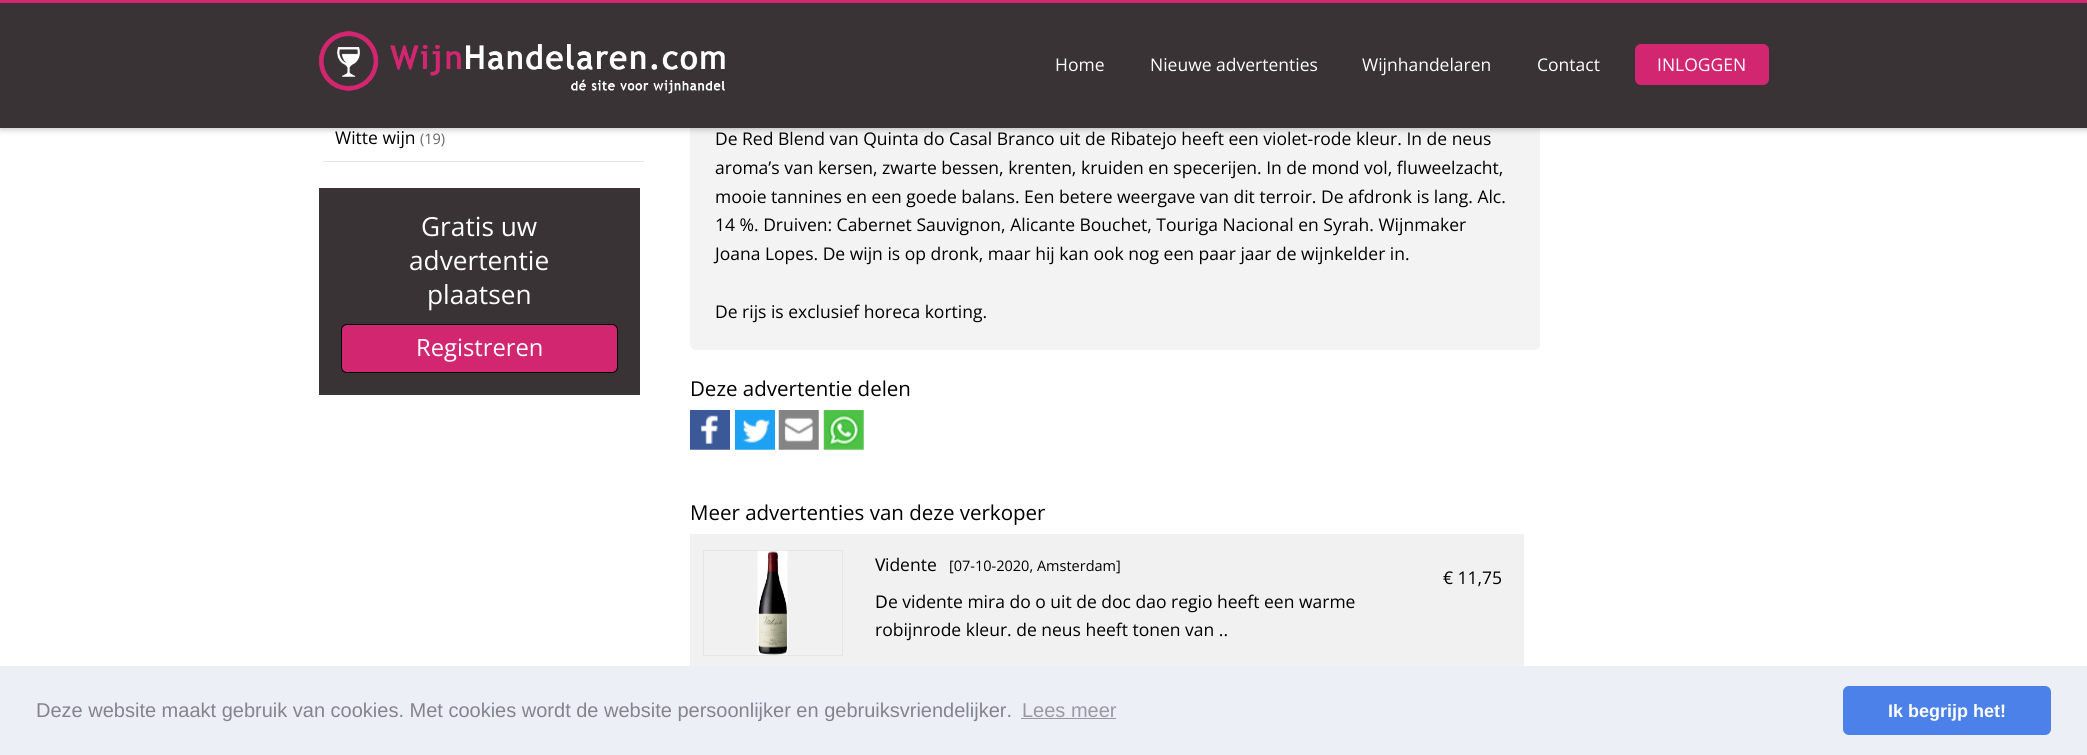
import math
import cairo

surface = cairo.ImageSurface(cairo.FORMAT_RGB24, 2087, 755)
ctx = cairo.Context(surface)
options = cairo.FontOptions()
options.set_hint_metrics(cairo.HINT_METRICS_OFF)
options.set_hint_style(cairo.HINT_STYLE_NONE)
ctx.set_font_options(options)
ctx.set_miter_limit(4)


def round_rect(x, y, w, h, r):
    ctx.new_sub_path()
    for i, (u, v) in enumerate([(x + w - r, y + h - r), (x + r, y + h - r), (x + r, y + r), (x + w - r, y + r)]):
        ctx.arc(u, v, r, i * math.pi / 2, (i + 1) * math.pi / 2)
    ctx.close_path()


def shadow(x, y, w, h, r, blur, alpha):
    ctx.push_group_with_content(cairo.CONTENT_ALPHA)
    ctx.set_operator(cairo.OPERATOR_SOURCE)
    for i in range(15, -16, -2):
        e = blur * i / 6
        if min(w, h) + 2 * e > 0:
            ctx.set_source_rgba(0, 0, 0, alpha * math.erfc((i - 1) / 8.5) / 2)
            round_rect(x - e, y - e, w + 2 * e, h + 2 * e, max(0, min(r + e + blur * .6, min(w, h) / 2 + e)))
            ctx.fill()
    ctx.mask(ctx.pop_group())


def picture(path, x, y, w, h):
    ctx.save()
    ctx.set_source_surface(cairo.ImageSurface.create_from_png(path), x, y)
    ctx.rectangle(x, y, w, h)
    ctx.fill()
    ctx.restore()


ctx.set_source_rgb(1, 1, 1)
ctx.paint()
ctx.set_source_rgb(0.953, 0.953, 0.953)
round_rect(690, -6, 850, 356, 6)
ctx.fill()
ctx.set_source_rgb(0, 0, 0)
shadow(0, 3, 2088, 127, 0, 3, 0.2)
ctx.set_source_rgb(0.224, 0.2, 0.208)
ctx.rectangle(0, 3, 2087, 125)
ctx.fill()
ctx.set_source_rgb(0.824, 0.149, 0.439)
ctx.rectangle(0, 0, 2087, 3)
ctx.fill()
picture("img1.png", 319, 31, 406, 63)
ctx.select_font_face("Open Sans")
ctx.set_font_size(17.5)
ctx.set_source_rgb(1, 1, 1)
ctx.move_to(1055, 71)
ctx.show_text("Home")
ctx.move_to(1150, 71)
ctx.show_text("Nieuwe advertenties")
ctx.move_to(1362, 71)
ctx.show_text("Wijnhandelaren")
ctx.move_to(1537, 71)
ctx.show_text("Contact")
ctx.set_source_rgb(0.824, 0.149, 0.439)
round_rect(1635, 44, 134, 41, 6)
ctx.fill()
ctx.set_source_rgb(1, 1, 1)
ctx.move_to(1657, 71)
ctx.show_text("INLOGGEN")
ctx.set_source_rgb(0.898, 0.898, 0.898)
ctx.rectangle(323, 161, 321, 1)
ctx.fill()
ctx.set_source_rgb(0, 0, 0)
ctx.move_to(335, 144)
ctx.show_text("Witte wijn")
ctx.set_font_size(14.5)
ctx.set_source_rgb(0.396, 0.396, 0.396)
ctx.move_to(420, 144)
ctx.show_text("(19)")
ctx.set_source_rgb(0.224, 0.2, 0.208)
ctx.rectangle(319, 188, 321, 207)
ctx.fill()
ctx.set_font_size(26.25)
ctx.set_source_rgb(1, 1, 1)
ctx.move_to(421, 236)
ctx.show_text("Gratis uw")
ctx.move_to(409, 270)
ctx.show_text("advertentie")
ctx.move_to(427, 304)
ctx.show_text("plaatsen")
ctx.set_source_rgb(0.824, 0.149, 0.439)
round_rect(341.5, 324.5, 276, 48, 5.5)
ctx.fill_preserve()
ctx.set_source_rgb(0, 0, 0)
ctx.set_line_width(1)
ctx.stroke()
ctx.set_font_size(23.75)
ctx.set_source_rgb(1, 1, 1)
ctx.move_to(416, 356)
ctx.show_text("Registreren")
ctx.set_font_size(17.5)
ctx.set_source_rgb(0, 0, 0)
ctx.move_to(715, 145)
ctx.show_text("De Red Blend van Quinta do Casal Branco uit de Ribatejo heeft een violet-rode kleur. In de neus")
ctx.move_to(715, 174)
ctx.show_text("aroma’s van kersen, zwarte bessen, krenten, kruiden en specerijen. In de mond vol, fluweelzacht,")
ctx.move_to(715, 203)
ctx.show_text("mooie tannines en een goede balans. Een betere weergave van dit terroir. De afdronk is lang. Alc.")
ctx.move_to(715, 231)
ctx.show_text("14 %. Druiven: Cabernet Sauvignon, Alicante Bouchet, Touriga Nacional en Syrah. Wijnmaker")
ctx.move_to(715, 260)
ctx.show_text("Joana Lopes. De wijn is op dronk, maar hij kan ook nog een paar jaar de wijnkelder in.")
ctx.move_to(715, 318)
ctx.show_text("De rijs is exclusief horeca korting.")
ctx.set_font_size(20.5)
ctx.move_to(690, 396)
ctx.show_text("Deze advertentie delen")
picture("img2.png", 690, 410, 40, 40)
picture("img3.png", 735, 410, 40, 40)
picture("img4.png", 778, 410, 41, 40)
picture("img5.png", 823, 410, 41, 40)
ctx.move_to(690, 520)
ctx.show_text("Meer advertenties van deze verkoper")
ctx.set_source_rgb(0.945, 0.945, 0.945)
ctx.rectangle(690, 534, 834, 132)
ctx.fill()
ctx.rectangle(703.5, 550.5, 139, 105)
ctx.set_source_rgb(0.898, 0.898, 0.898)
ctx.stroke()
picture("img6.png", 757, 550, 31, 105)
ctx.select_font_face("Noto Sans")
ctx.set_font_size(17.5)
ctx.set_source_rgb(0, 0, 0)
ctx.move_to(875, 571)
ctx.show_text("V")
ctx.select_font_face("Open Sans")
ctx.move_to(885, 571)
ctx.show_text("idente")
ctx.set_font_size(14.5)
ctx.move_to(949, 571)
ctx.show_text("[07-10-2020, Amsterdam]")
ctx.select_font_face("Noto Sans")
ctx.set_font_size(17.5)
ctx.move_to(875, 608)
ctx.show_text("D")
ctx.select_font_face("Open Sans")
ctx.move_to(888, 608)
ctx.show_text("e vidente mira do o uit de doc dao regio heeft een warme")
ctx.move_to(875, 636)
ctx.show_text("robijnrode kleur. de neus heeft tonen van ..")
ctx.move_to(1443, 584)
ctx.show_text("€ 11,75")
ctx.set_source_rgb(0.929, 0.937, 0.961)
ctx.rectangle(0, 666, 2087, 89)
ctx.fill()
ctx.select_font_face("Liberation Sans")
ctx.set_font_size(20)
ctx.set_source_rgb(0.514, 0.514, 0.569)
ctx.move_to(36, 717)
ctx.show_text("Deze website maakt gebruik van cookies. Met cookies wordt de website persoonlijker en gebruiksvriendelijker.")
ctx.set_source_rgb(0.596, 0.6, 0.647)
ctx.move_to(1022, 717)
ctx.show_text("Lees meer")
ctx.rectangle(1021, 718, 95, 1)
ctx.fill()
ctx.set_source_rgb(0.294, 0.506, 0.91)
round_rect(1843, 686, 208, 49, 6)
ctx.fill()
ctx.select_font_face("Liberation Sans", cairo.FONT_SLANT_NORMAL, cairo.FONT_WEIGHT_BOLD)
ctx.set_font_size(18)
ctx.set_source_rgb(1, 1, 1)
ctx.move_to(1888, 717)
ctx.show_text("Ik begrijp het!")
surface.write_to_png("page.png")
